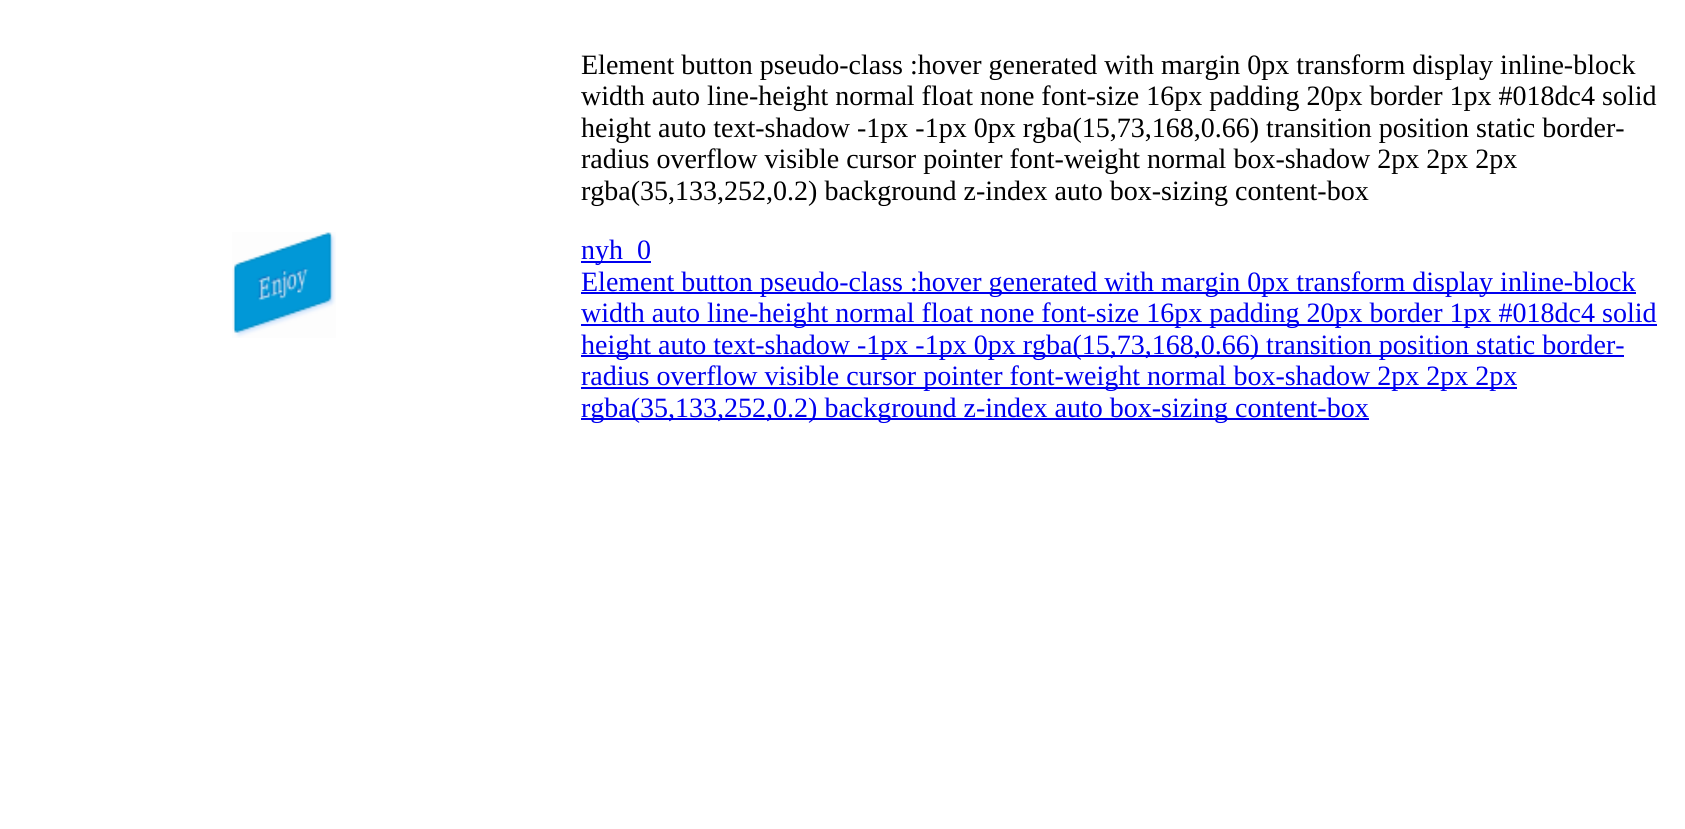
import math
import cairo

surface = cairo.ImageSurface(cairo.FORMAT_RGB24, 1685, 829)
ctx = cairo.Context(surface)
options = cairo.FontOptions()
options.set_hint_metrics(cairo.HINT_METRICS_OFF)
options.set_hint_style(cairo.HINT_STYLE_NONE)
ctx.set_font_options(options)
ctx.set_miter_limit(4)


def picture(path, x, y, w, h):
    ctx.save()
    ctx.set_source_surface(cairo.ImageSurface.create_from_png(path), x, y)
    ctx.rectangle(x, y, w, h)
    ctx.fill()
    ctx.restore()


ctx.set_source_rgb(1, 1, 1)
ctx.paint()
picture("img1.png", 232, 232, 104, 106)
ctx.select_font_face("Liberation Serif")
ctx.set_font_size(28)
ctx.set_source_rgb(0, 0, 0)
ctx.move_to(581, 74)
ctx.show_text("Element button pseudo-class :hover generated with margin 0px transform display inline-block")
ctx.move_to(581, 105)
ctx.show_text("width auto line-height normal float none font-size 16px padding 20px border 1px #018dc4 solid")
ctx.move_to(581, 137)
ctx.show_text("height auto text-shadow -1px -1px 0px rgba(15,73,168,0.66) transition position static border-")
ctx.move_to(581, 168)
ctx.show_text("radius overflow visible cursor pointer font-weight normal box-shadow 2px 2px 2px")
ctx.move_to(581, 200)
ctx.show_text("rgba(35,133,252,0.2) background z-index auto box-sizing content-box")
ctx.set_source_rgb(0, 0, 0.933)
ctx.rectangle(581, 261, 70, 2)
ctx.fill()
ctx.move_to(581, 259)
ctx.show_text("nyh_0")
ctx.rectangle(581, 292, 1055, 2)
ctx.fill()
ctx.move_to(581, 291)
ctx.show_text("Element button pseudo-class :hover generated with margin 0px transform display inline-block")
ctx.rectangle(581, 324, 1076, 2)
ctx.fill()
ctx.move_to(581, 322)
ctx.show_text("width auto line-height normal float none font-size 16px padding 20px border 1px #018dc4 solid")
ctx.rectangle(581, 355, 1043, 2)
ctx.fill()
ctx.move_to(581, 354)
ctx.show_text("height auto text-shadow -1px -1px 0px rgba(15,73,168,0.66) transition position static border-")
ctx.rectangle(581, 387, 936, 2)
ctx.fill()
ctx.move_to(581, 385)
ctx.show_text("radius overflow visible cursor pointer font-weight normal box-shadow 2px 2px 2px")
ctx.rectangle(581, 418, 788, 2)
ctx.fill()
ctx.move_to(581, 417)
ctx.show_text("rgba(35,133,252,0.2) background z-index auto box-sizing content-box")
surface.write_to_png("page.png")
